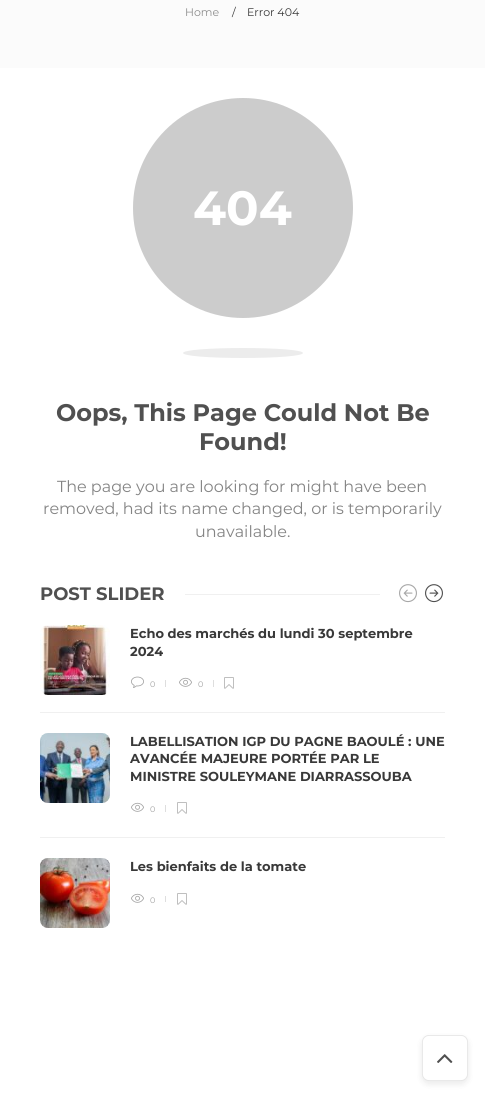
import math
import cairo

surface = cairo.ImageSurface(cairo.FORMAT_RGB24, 485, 1098)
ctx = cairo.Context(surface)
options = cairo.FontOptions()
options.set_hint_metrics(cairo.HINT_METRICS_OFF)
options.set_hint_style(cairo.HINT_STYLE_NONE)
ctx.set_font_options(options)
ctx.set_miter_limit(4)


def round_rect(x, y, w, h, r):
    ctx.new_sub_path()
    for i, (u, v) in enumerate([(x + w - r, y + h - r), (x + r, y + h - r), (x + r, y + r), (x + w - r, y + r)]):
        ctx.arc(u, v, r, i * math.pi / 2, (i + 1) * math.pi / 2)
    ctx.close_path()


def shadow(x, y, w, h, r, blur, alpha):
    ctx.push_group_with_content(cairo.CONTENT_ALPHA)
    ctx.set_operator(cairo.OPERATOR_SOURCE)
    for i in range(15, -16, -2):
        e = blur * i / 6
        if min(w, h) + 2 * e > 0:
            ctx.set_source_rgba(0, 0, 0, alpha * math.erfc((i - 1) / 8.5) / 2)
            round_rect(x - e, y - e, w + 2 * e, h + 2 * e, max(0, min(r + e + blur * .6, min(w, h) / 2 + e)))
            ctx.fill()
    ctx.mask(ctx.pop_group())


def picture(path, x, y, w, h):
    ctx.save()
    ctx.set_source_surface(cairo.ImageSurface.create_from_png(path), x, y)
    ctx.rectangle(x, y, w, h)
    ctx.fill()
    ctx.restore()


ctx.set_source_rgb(1, 1, 1)
ctx.paint()
ctx.set_source_rgb(0.984, 0.984, 0.984)
ctx.rectangle(0, 0, 485, 68)
ctx.fill()
ctx.select_font_face("Montserrat")
ctx.set_font_size(11)
ctx.set_source_rgb(0.553, 0.553, 0.553)
ctx.move_to(185, 16)
ctx.show_text("Home")
ctx.set_source_rgb(0.224, 0.224, 0.224)
ctx.move_to(232, 16)
ctx.show_text("/")
ctx.move_to(247, 16)
ctx.show_text("Error 404")
ctx.set_source_rgb(0.8, 0.8, 0.8)
ctx.new_path()
ctx.arc(243, 208, 110, 0, 2 * math.pi)
ctx.fill()
ctx.select_font_face("Montserrat", cairo.FONT_SLANT_NORMAL, cairo.FONT_WEIGHT_BOLD)
ctx.set_font_size(48)
ctx.set_source_rgb(1, 1, 1)
ctx.move_to(193, 225)
ctx.show_text("404")
ctx.set_source_rgb(0.925, 0.925, 0.925)
ctx.new_path()
ctx.move_to(243, 348)
ctx.curve_to(276, 348, 303, 350, 303, 353)
ctx.curve_to(303, 356, 276, 358, 243, 358)
ctx.curve_to(210, 358, 183, 356, 183, 353)
ctx.curve_to(183, 350, 210, 348, 243, 348)
ctx.close_path()
ctx.fill()
ctx.set_font_size(24)
ctx.set_source_rgb(0.314, 0.314, 0.314)
ctx.move_to(56, 421)
ctx.show_text("Oops, This Page Could Not Be")
ctx.move_to(199, 450)
ctx.show_text("Found!")
ctx.select_font_face("Montserrat")
ctx.set_font_size(16)
ctx.set_source_rgb(0.518, 0.518, 0.518)
ctx.move_to(57, 492)
ctx.show_text("The page you are looking for might have been")
ctx.move_to(43, 514)
ctx.show_text("removed, had its name changed, or is temporarily")
ctx.move_to(195, 537)
ctx.show_text("unavailable.")
ctx.select_font_face("Montserrat", cairo.FONT_SLANT_NORMAL, cairo.FONT_WEIGHT_BOLD)
ctx.set_font_size(18)
ctx.set_source_rgb(0.314, 0.314, 0.314)
ctx.move_to(40, 600)
ctx.show_text("POST SLIDER")
ctx.set_source_rgb(0.941, 0.941, 0.941)
ctx.rectangle(185, 594, 195, 1)
ctx.fill()
picture("img1.png", 399, 584, 18, 19)
picture("img2.png", 425, 584, 18, 19)
ctx.rectangle(40, 712, 405, 1)
ctx.fill()
picture("img3.png", 40, 625, 70, 70)
ctx.set_font_size(13)
ctx.set_source_rgb(0.224, 0.224, 0.224)
ctx.move_to(130, 638)
ctx.show_text("Echo des marchés du lundi 30 septembre")
ctx.move_to(130, 656)
ctx.show_text("2024")
picture("img4.png", 131, 676, 13, 12)
ctx.select_font_face("Montserrat")
ctx.set_font_size(8)
ctx.set_source_rgb(0.643, 0.643, 0.643)
ctx.move_to(150, 687)
ctx.show_text("0")
ctx.set_source_rgb(0.871, 0.871, 0.871)
ctx.rectangle(165, 680, 1, 7)
ctx.fill()
picture("img5.png", 179, 677, 13, 10)
ctx.set_source_rgb(0.643, 0.643, 0.643)
ctx.move_to(198, 687)
ctx.show_text("0")
ctx.set_source_rgb(0.871, 0.871, 0.871)
ctx.rectangle(213, 680, 1, 7)
ctx.fill()
picture("img6.png", 224, 677, 10, 12)
ctx.set_source_rgb(0.941, 0.941, 0.941)
ctx.rectangle(40, 837, 405, 1)
ctx.fill()
picture("img7.png", 40, 733, 70, 70)
ctx.select_font_face("Montserrat", cairo.FONT_SLANT_NORMAL, cairo.FONT_WEIGHT_BOLD)
ctx.set_font_size(13)
ctx.set_source_rgb(0.224, 0.224, 0.224)
ctx.move_to(130, 746)
ctx.show_text("LABELLISATION IGP DU PAGNE BAOULÉ : UNE")
ctx.move_to(130, 763)
ctx.show_text("AVANCÉE MAJEURE PORTÉE PAR LE")
ctx.move_to(130, 781)
ctx.show_text("MINISTRE SOULEYMANE DIARRASSOUBA")
picture("img5.png", 131, 802, 13, 10)
ctx.select_font_face("Montserrat")
ctx.set_font_size(8)
ctx.set_source_rgb(0.643, 0.643, 0.643)
ctx.move_to(150, 812)
ctx.show_text("0")
ctx.set_source_rgb(0.871, 0.871, 0.871)
ctx.rectangle(165, 805, 1, 7)
ctx.fill()
picture("img6.png", 177, 802, 10, 12)
picture("img8.png", 40, 858, 70, 70)
ctx.select_font_face("Montserrat", cairo.FONT_SLANT_NORMAL, cairo.FONT_WEIGHT_BOLD)
ctx.set_font_size(13)
ctx.set_source_rgb(0.224, 0.224, 0.224)
ctx.move_to(130, 871)
ctx.show_text("Les bienfaits de la tomate")
picture("img5.png", 131, 893, 13, 10)
ctx.select_font_face("Montserrat")
ctx.set_font_size(8)
ctx.set_source_rgb(0.643, 0.643, 0.643)
ctx.move_to(150, 903)
ctx.show_text("0")
ctx.set_source_rgb(0.871, 0.871, 0.871)
ctx.rectangle(165, 896, 1, 6)
ctx.fill()
picture("img6.png", 177, 893, 10, 12)
ctx.set_source_rgb(0, 0, 0)
shadow(421, 1037, 48, 48, 8, 3, 0.07)
ctx.set_source_rgb(1, 1, 1)
round_rect(422, 1035, 46, 46, 7)
ctx.fill()
round_rect(422.45, 1035.45, 45.1, 45.1, 6.55)
ctx.set_source_rgba(0, 0, 0, 0.1)
ctx.set_line_width(0.9)
ctx.stroke()
picture("img9.png", 437, 1054, 16, 9)
surface.write_to_png("page.png")
